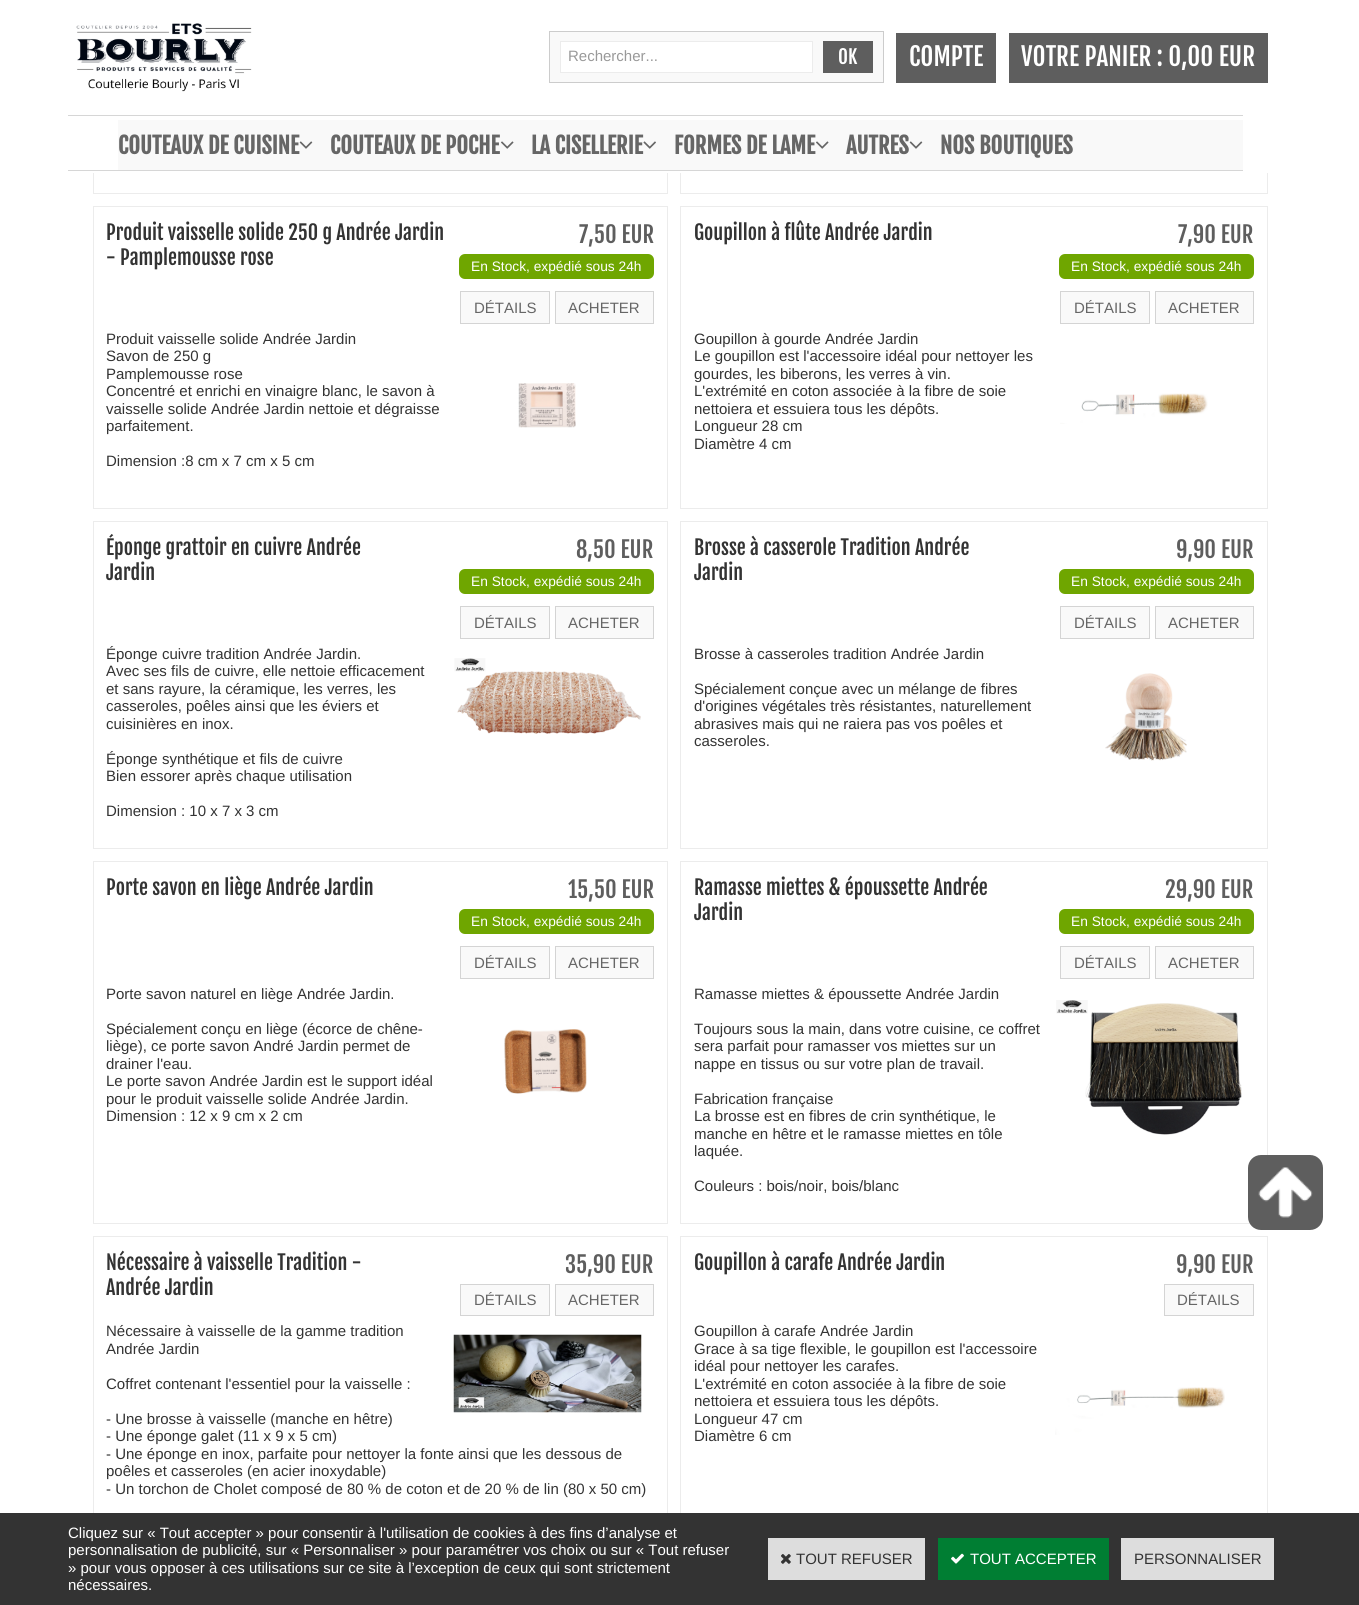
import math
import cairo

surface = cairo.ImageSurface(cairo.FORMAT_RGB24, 1359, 1605)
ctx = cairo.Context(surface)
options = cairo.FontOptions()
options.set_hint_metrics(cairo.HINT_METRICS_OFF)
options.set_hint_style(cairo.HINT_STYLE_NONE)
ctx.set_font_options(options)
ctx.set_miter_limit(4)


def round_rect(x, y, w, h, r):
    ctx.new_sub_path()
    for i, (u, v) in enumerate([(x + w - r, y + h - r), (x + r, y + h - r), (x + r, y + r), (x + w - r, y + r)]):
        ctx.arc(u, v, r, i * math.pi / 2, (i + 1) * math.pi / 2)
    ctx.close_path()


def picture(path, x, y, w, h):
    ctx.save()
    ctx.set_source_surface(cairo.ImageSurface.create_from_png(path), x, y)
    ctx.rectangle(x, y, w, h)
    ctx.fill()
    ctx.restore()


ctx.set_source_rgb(1, 1, 1)
ctx.paint()
ctx.rectangle(93.5, -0.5, 574, 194)
ctx.set_source_rgb(0.922, 0.922, 0.922)
ctx.set_line_width(1)
ctx.stroke()
ctx.rectangle(680.5, -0.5, 587, 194)
ctx.stroke()
ctx.set_source_rgb(1, 1, 1)
ctx.rectangle(93, 0, 1175, 173)
ctx.fill()
picture("img1.png", 76, 23, 176, 69)
ctx.set_source_rgb(0.973, 0.973, 0.973)
ctx.rectangle(549.5, 31.5, 334, 51)
ctx.fill_preserve()
ctx.set_source_rgb(0.8, 0.8, 0.8)
ctx.stroke()
ctx.set_source_rgb(1, 1, 1)
ctx.rectangle(560.5, 41.5, 252, 31)
ctx.fill_preserve()
ctx.set_source_rgb(0.922, 0.922, 0.922)
ctx.stroke()
ctx.select_font_face("Liberation Sans")
ctx.set_font_size(15)
ctx.set_source_rgb(0.6, 0.6, 0.6)
ctx.move_to(568, 61)
ctx.show_text("Rechercher...")
ctx.set_source_rgb(0.369, 0.369, 0.369)
ctx.rectangle(823, 41, 50, 32)
ctx.fill()
ctx.select_font_face("Fjalla One")
ctx.set_font_size(19)
ctx.set_source_rgb(1, 1, 1)
ctx.move_to(838, 64)
ctx.show_text("OK")
ctx.set_source_rgb(0.369, 0.369, 0.369)
ctx.rectangle(896, 33, 100, 50)
ctx.fill()
ctx.set_font_size(25)
ctx.set_source_rgb(1, 1, 1)
ctx.move_to(909, 66)
ctx.show_text("COMPTE")
ctx.set_source_rgb(0.369, 0.369, 0.369)
ctx.rectangle(1009, 33, 259, 50)
ctx.fill()
ctx.set_source_rgb(1, 1, 1)
ctx.move_to(1021, 66)
ctx.show_text("VOTRE PANIER : 0,00 EUR")
ctx.set_source_rgb(0.839, 0.839, 0.839)
ctx.rectangle(68, 115, 1175, 1)
ctx.fill()
ctx.rectangle(68, 170, 1175, 1)
ctx.fill()
ctx.set_source_rgb(0.973, 0.973, 0.973)
ctx.rectangle(118, 120, 1125, 50)
ctx.fill()
ctx.select_font_face("Fjalla One", cairo.FONT_SLANT_NORMAL, cairo.FONT_WEIGHT_BOLD)
ctx.set_font_size(22.5)
ctx.set_source_rgb(0.4, 0.4, 0.4)
ctx.move_to(118, 154)
ctx.show_text("COUTEAUX DE CUISINE")
picture("img2.png", 299, 141, 14, 8)
ctx.move_to(330, 154)
ctx.show_text("COUTEAUX DE POCHE")
picture("img3.png", 501, 141, 13, 8)
ctx.move_to(531, 154)
ctx.show_text("LA CISELLERIE")
picture("img4.png", 643, 141, 13, 8)
ctx.move_to(674, 154)
ctx.show_text("FORMES DE LAME")
picture("img3.png", 816, 141, 13, 8)
ctx.move_to(846, 154)
ctx.show_text("AUTRES")
picture("img2.png", 909, 141, 14, 8)
ctx.move_to(940, 154)
ctx.show_text("NOS BOUTIQUES")
ctx.rectangle(93.5, 206.5, 574, 302)
ctx.set_source_rgb(0.922, 0.922, 0.922)
ctx.stroke()
ctx.select_font_face("Fjalla One")
ctx.set_font_size(20)
ctx.set_source_rgb(0.2, 0.2, 0.2)
ctx.move_to(106, 240)
ctx.show_text("Produit vaisselle solide 250 g Andrée Jardin")
ctx.move_to(106, 265)
ctx.show_text("- Pamplemousse rose")
ctx.set_font_size(22.5)
ctx.set_source_rgb(0.369, 0.369, 0.369)
ctx.move_to(579, 243)
ctx.show_text("7,50 EUR")
ctx.set_source_rgb(0.435, 0.651, 0)
round_rect(459, 254, 195, 25, 6)
ctx.fill()
ctx.select_font_face("Liberation Sans")
ctx.set_font_size(13.75)
ctx.set_source_rgb(1, 1, 1)
ctx.move_to(471, 271)
ctx.show_text("En Stock, expédié sous 24h")
ctx.set_source_rgb(0.973, 0.973, 0.973)
ctx.rectangle(460.5, 291.5, 89, 32)
ctx.fill_preserve()
ctx.set_source_rgb(0.831, 0.831, 0.831)
ctx.stroke()
ctx.set_font_size(15)
ctx.set_source_rgb(0.4, 0.4, 0.4)
ctx.move_to(474, 313)
ctx.show_text("DÉTAILS")
ctx.set_source_rgb(0.973, 0.973, 0.973)
ctx.rectangle(555.5, 291.5, 98, 32)
ctx.fill_preserve()
ctx.set_source_rgb(0.831, 0.831, 0.831)
ctx.stroke()
ctx.set_source_rgb(0.4, 0.4, 0.4)
ctx.move_to(568, 313)
ctx.show_text("ACHETER")
ctx.set_source_rgb(0.2, 0.2, 0.2)
ctx.move_to(106, 344)
ctx.show_text("Produit vaisselle solide Andrée Jardin")
ctx.move_to(106, 361)
ctx.show_text("Savon de 250 g")
ctx.move_to(106, 379)
ctx.show_text("Pamplemousse rose")
ctx.move_to(106, 396)
ctx.show_text("Concentré et enrichi en vinaigre blanc, le savon à")
ctx.move_to(106, 414)
ctx.show_text("vaisselle solide Andrée Jardin nettoie et dégraisse")
ctx.move_to(106, 431)
ctx.show_text("parfaitement.")
ctx.move_to(106, 466)
ctx.show_text("Dimension :8 cm x 7 cm x 5 cm")
picture("img5.png", 518, 383, 58, 45)
ctx.rectangle(680.5, 206.5, 587, 302)
ctx.set_source_rgb(0.922, 0.922, 0.922)
ctx.stroke()
ctx.select_font_face("Fjalla One")
ctx.set_font_size(20)
ctx.set_source_rgb(0.2, 0.2, 0.2)
ctx.move_to(694, 240)
ctx.show_text("Goupillon à flûte Andrée Jardin")
ctx.set_font_size(22.5)
ctx.set_source_rgb(0.369, 0.369, 0.369)
ctx.move_to(1178, 243)
ctx.show_text("7,90 EUR")
ctx.set_source_rgb(0.435, 0.651, 0)
round_rect(1059, 254, 195, 25, 6)
ctx.fill()
ctx.select_font_face("Liberation Sans")
ctx.set_font_size(13.75)
ctx.set_source_rgb(1, 1, 1)
ctx.move_to(1071, 271)
ctx.show_text("En Stock, expédié sous 24h")
ctx.set_source_rgb(0.973, 0.973, 0.973)
ctx.rectangle(1060.5, 291.5, 89, 32)
ctx.fill_preserve()
ctx.set_source_rgb(0.831, 0.831, 0.831)
ctx.stroke()
ctx.set_font_size(15)
ctx.set_source_rgb(0.4, 0.4, 0.4)
ctx.move_to(1074, 313)
ctx.show_text("DÉTAILS")
ctx.set_source_rgb(0.973, 0.973, 0.973)
ctx.rectangle(1155.5, 291.5, 98, 32)
ctx.fill_preserve()
ctx.set_source_rgb(0.831, 0.831, 0.831)
ctx.stroke()
ctx.set_source_rgb(0.4, 0.4, 0.4)
ctx.move_to(1168, 313)
ctx.show_text("ACHETER")
ctx.set_source_rgb(0.2, 0.2, 0.2)
ctx.move_to(694, 344)
ctx.show_text("Goupillon à gourde Andrée Jardin")
ctx.move_to(694, 361)
ctx.show_text("Le goupillon est l'accessoire idéal pour nettoyer les")
ctx.move_to(694, 379)
ctx.show_text("gourdes, les biberons, les verres à vin.")
ctx.move_to(694, 396)
ctx.show_text("L'extrémité en coton associée à la fibre de soie")
ctx.move_to(694, 414)
ctx.show_text("nettoiera et essuiera tous les dépôts.")
ctx.move_to(694, 431)
ctx.show_text("Longueur 28 cm")
ctx.move_to(694, 449)
ctx.show_text("Diamètre 4 cm")
picture("img6.png", 1060, 393, 148, 31)
ctx.rectangle(93.5, 521.5, 574, 327)
ctx.set_source_rgb(0.922, 0.922, 0.922)
ctx.stroke()
ctx.select_font_face("Fjalla One")
ctx.set_font_size(20)
ctx.set_source_rgb(0.2, 0.2, 0.2)
ctx.move_to(106, 555)
ctx.show_text("Éponge grattoir en cuivre Andrée")
ctx.move_to(106, 580)
ctx.show_text("Jardin")
ctx.set_font_size(22.5)
ctx.set_source_rgb(0.369, 0.369, 0.369)
ctx.move_to(576, 558)
ctx.show_text("8,50 EUR")
ctx.set_source_rgb(0.435, 0.651, 0)
round_rect(459, 569, 195, 25, 6)
ctx.fill()
ctx.select_font_face("Liberation Sans")
ctx.set_font_size(13.75)
ctx.set_source_rgb(1, 1, 1)
ctx.move_to(471, 586)
ctx.show_text("En Stock, expédié sous 24h")
ctx.set_source_rgb(0.973, 0.973, 0.973)
ctx.rectangle(460.5, 606.5, 89, 32)
ctx.fill_preserve()
ctx.set_source_rgb(0.831, 0.831, 0.831)
ctx.stroke()
ctx.set_font_size(15)
ctx.set_source_rgb(0.4, 0.4, 0.4)
ctx.move_to(474, 628)
ctx.show_text("DÉTAILS")
ctx.set_source_rgb(0.973, 0.973, 0.973)
ctx.rectangle(555.5, 606.5, 98, 32)
ctx.fill_preserve()
ctx.set_source_rgb(0.831, 0.831, 0.831)
ctx.stroke()
ctx.set_source_rgb(0.4, 0.4, 0.4)
ctx.move_to(568, 628)
ctx.show_text("ACHETER")
ctx.set_source_rgb(0.2, 0.2, 0.2)
ctx.move_to(106, 659)
ctx.show_text("Éponge cuivre tradition Andrée Jardin.")
ctx.move_to(106, 676)
ctx.show_text("Avec ses fils de cuivre, elle nettoie efficacement")
ctx.move_to(106, 694)
ctx.show_text("et sans rayure, la céramique, les verres, les")
ctx.move_to(106, 711)
ctx.show_text("casseroles, poêles ainsi que les éviers et")
ctx.move_to(106, 729)
ctx.show_text("cuisinières en inox.")
ctx.move_to(106, 764)
ctx.show_text("Éponge synthétique et fils de cuivre")
ctx.move_to(106, 781)
ctx.show_text("Bien essorer après chaque utilisation")
ctx.move_to(106, 816)
ctx.show_text("Dimension : 10 x 7 x 3 cm")
picture("img7.png", 454, 658, 187, 76)
ctx.rectangle(680.5, 521.5, 587, 327)
ctx.set_source_rgb(0.922, 0.922, 0.922)
ctx.stroke()
ctx.select_font_face("Fjalla One")
ctx.set_font_size(20)
ctx.set_source_rgb(0.2, 0.2, 0.2)
ctx.move_to(694, 555)
ctx.show_text("Brosse à casserole Tradition Andrée")
ctx.move_to(694, 580)
ctx.show_text("Jardin")
ctx.set_font_size(22.5)
ctx.set_source_rgb(0.369, 0.369, 0.369)
ctx.move_to(1176, 558)
ctx.show_text("9,90 EUR")
ctx.set_source_rgb(0.435, 0.651, 0)
round_rect(1059, 569, 195, 25, 6)
ctx.fill()
ctx.select_font_face("Liberation Sans")
ctx.set_font_size(13.75)
ctx.set_source_rgb(1, 1, 1)
ctx.move_to(1071, 586)
ctx.show_text("En Stock, expédié sous 24h")
ctx.set_source_rgb(0.973, 0.973, 0.973)
ctx.rectangle(1060.5, 606.5, 89, 32)
ctx.fill_preserve()
ctx.set_source_rgb(0.831, 0.831, 0.831)
ctx.stroke()
ctx.set_font_size(15)
ctx.set_source_rgb(0.4, 0.4, 0.4)
ctx.move_to(1074, 628)
ctx.show_text("DÉTAILS")
ctx.set_source_rgb(0.973, 0.973, 0.973)
ctx.rectangle(1155.5, 606.5, 98, 32)
ctx.fill_preserve()
ctx.set_source_rgb(0.831, 0.831, 0.831)
ctx.stroke()
ctx.set_source_rgb(0.4, 0.4, 0.4)
ctx.move_to(1168, 628)
ctx.show_text("ACHETER")
ctx.set_source_rgb(0.2, 0.2, 0.2)
ctx.move_to(694, 659)
ctx.show_text("Brosse à casseroles tradition Andrée Jardin")
ctx.move_to(694, 694)
ctx.show_text("Spécialement conçue avec un mélange de fibres")
ctx.move_to(694, 711)
ctx.show_text("d'origines végétales très résistantes, naturellement")
ctx.move_to(694, 729)
ctx.show_text("abrasives mais qui ne raiera pas vos poêles et")
ctx.move_to(694, 746)
ctx.show_text("casseroles.")
picture("img8.png", 1105, 673, 82, 88)
ctx.rectangle(93.5, 861.5, 574, 362)
ctx.set_source_rgb(0.922, 0.922, 0.922)
ctx.stroke()
ctx.select_font_face("Fjalla One")
ctx.set_font_size(20)
ctx.set_source_rgb(0.2, 0.2, 0.2)
ctx.move_to(106, 895)
ctx.show_text("Porte savon en liège Andrée Jardin")
ctx.set_font_size(22.5)
ctx.set_source_rgb(0.369, 0.369, 0.369)
ctx.move_to(568, 898)
ctx.show_text("15,50 EUR")
ctx.set_source_rgb(0.435, 0.651, 0)
round_rect(459, 909, 195, 25, 6)
ctx.fill()
ctx.select_font_face("Liberation Sans")
ctx.set_font_size(13.75)
ctx.set_source_rgb(1, 1, 1)
ctx.move_to(471, 926)
ctx.show_text("En Stock, expédié sous 24h")
ctx.set_source_rgb(0.973, 0.973, 0.973)
ctx.rectangle(460.5, 946.5, 89, 32)
ctx.fill_preserve()
ctx.set_source_rgb(0.831, 0.831, 0.831)
ctx.stroke()
ctx.set_font_size(15)
ctx.set_source_rgb(0.4, 0.4, 0.4)
ctx.move_to(474, 968)
ctx.show_text("DÉTAILS")
ctx.set_source_rgb(0.973, 0.973, 0.973)
ctx.rectangle(555.5, 946.5, 98, 32)
ctx.fill_preserve()
ctx.set_source_rgb(0.831, 0.831, 0.831)
ctx.stroke()
ctx.set_source_rgb(0.4, 0.4, 0.4)
ctx.move_to(568, 968)
ctx.show_text("ACHETER")
ctx.set_source_rgb(0.2, 0.2, 0.2)
ctx.move_to(106, 999)
ctx.show_text("Porte savon naturel en liège Andrée Jardin.")
ctx.move_to(106, 1034)
ctx.show_text("Spécialement conçu en liège (écorce de chêne-")
ctx.move_to(106, 1051)
ctx.show_text("liège), ce porte savon André Jardin permet de")
ctx.move_to(106, 1069)
ctx.show_text("drainer l'eau.")
ctx.move_to(106, 1086)
ctx.show_text("Le porte savon Andrée Jardin est le support idéal")
ctx.move_to(106, 1104)
ctx.show_text("pour le produit vaisselle solide Andrée Jardin.")
ctx.move_to(106, 1121)
ctx.show_text("Dimension : 12 x 9 cm x 2 cm")
picture("img9.png", 504, 1029, 83, 65)
ctx.rectangle(680.5, 861.5, 587, 362)
ctx.set_source_rgb(0.922, 0.922, 0.922)
ctx.stroke()
ctx.select_font_face("Fjalla One")
ctx.set_font_size(20)
ctx.set_source_rgb(0.2, 0.2, 0.2)
ctx.move_to(694, 895)
ctx.show_text("Ramasse miettes & époussette Andrée")
ctx.move_to(694, 920)
ctx.show_text("Jardin")
ctx.set_font_size(22.5)
ctx.set_source_rgb(0.369, 0.369, 0.369)
ctx.move_to(1165, 898)
ctx.show_text("29,90 EUR")
ctx.set_source_rgb(0.435, 0.651, 0)
round_rect(1059, 909, 195, 25, 6)
ctx.fill()
ctx.select_font_face("Liberation Sans")
ctx.set_font_size(13.75)
ctx.set_source_rgb(1, 1, 1)
ctx.move_to(1071, 926)
ctx.show_text("En Stock, expédié sous 24h")
ctx.set_source_rgb(0.973, 0.973, 0.973)
ctx.rectangle(1060.5, 946.5, 89, 32)
ctx.fill_preserve()
ctx.set_source_rgb(0.831, 0.831, 0.831)
ctx.stroke()
ctx.set_font_size(15)
ctx.set_source_rgb(0.4, 0.4, 0.4)
ctx.move_to(1074, 968)
ctx.show_text("DÉTAILS")
ctx.set_source_rgb(0.973, 0.973, 0.973)
ctx.rectangle(1155.5, 946.5, 98, 32)
ctx.fill_preserve()
ctx.set_source_rgb(0.831, 0.831, 0.831)
ctx.stroke()
ctx.set_source_rgb(0.4, 0.4, 0.4)
ctx.move_to(1168, 968)
ctx.show_text("ACHETER")
ctx.set_source_rgb(0.2, 0.2, 0.2)
ctx.move_to(694, 999)
ctx.show_text("Ramasse miettes & époussette Andrée Jardin")
ctx.move_to(694, 1034)
ctx.show_text("Toujours sous la main, dans votre cuisine, ce coffret")
ctx.move_to(694, 1051)
ctx.show_text("sera parfait pour ramasser vos miettes sur un")
ctx.move_to(694, 1069)
ctx.show_text("nappe en tissus ou sur votre plan de travail.")
ctx.move_to(694, 1104)
ctx.show_text("Fabrication française")
ctx.move_to(694, 1121)
ctx.show_text("La brosse est en fibres de crin synthétique, le")
ctx.move_to(694, 1139)
ctx.show_text("manche en hêtre et le ramasse miettes en tôle")
ctx.move_to(694, 1156)
ctx.show_text("laquée.")
ctx.move_to(694, 1191)
ctx.show_text("Couleurs : bois/noir, bois/blanc")
picture("img10.png", 1056, 1000, 186, 135)
ctx.rectangle(93.5, 1236.5, 574, 289)
ctx.set_source_rgb(0.922, 0.922, 0.922)
ctx.stroke()
ctx.select_font_face("Fjalla One")
ctx.set_font_size(20)
ctx.set_source_rgb(0.2, 0.2, 0.2)
ctx.move_to(106, 1270)
ctx.show_text("Nécessaire à vaisselle Tradition -")
ctx.move_to(106, 1295)
ctx.show_text("Andrée Jardin")
ctx.set_font_size(22.5)
ctx.set_source_rgb(0.369, 0.369, 0.369)
ctx.move_to(565, 1273)
ctx.show_text("35,90 EUR")
ctx.set_source_rgb(0.973, 0.973, 0.973)
ctx.rectangle(460.5, 1284.5, 89, 31)
ctx.fill_preserve()
ctx.set_source_rgb(0.831, 0.831, 0.831)
ctx.stroke()
ctx.select_font_face("Liberation Sans")
ctx.set_font_size(15)
ctx.set_source_rgb(0.4, 0.4, 0.4)
ctx.move_to(474, 1305)
ctx.show_text("DÉTAILS")
ctx.set_source_rgb(0.973, 0.973, 0.973)
ctx.rectangle(555.5, 1284.5, 98, 31)
ctx.fill_preserve()
ctx.set_source_rgb(0.831, 0.831, 0.831)
ctx.stroke()
ctx.set_source_rgb(0.4, 0.4, 0.4)
ctx.move_to(568, 1305)
ctx.show_text("ACHETER")
ctx.set_source_rgb(0.2, 0.2, 0.2)
ctx.move_to(106, 1336)
ctx.show_text("Nécessaire à vaisselle de la gamme tradition")
ctx.move_to(106, 1354)
ctx.show_text("Andrée Jardin")
ctx.move_to(106, 1389)
ctx.show_text("Coffret contenant l'essentiel pour la vaisselle :")
ctx.move_to(106, 1424)
ctx.show_text("- Une brosse à vaisselle (manche en hêtre)")
ctx.move_to(106, 1441)
ctx.show_text("- Une éponge galet (11 x 9 x 5 cm)")
ctx.move_to(106, 1459)
ctx.show_text("- Une éponge en inox, parfaite pour nettoyer la fonte ainsi que les dessous de")
ctx.move_to(106, 1476)
ctx.show_text("poêles et casseroles (en acier inoxydable)")
ctx.move_to(106, 1494)
ctx.show_text("- Un torchon de Cholet composé de 80 % de coton et de 20 % de lin (80 x 50 cm)")
picture("img11.png", 453, 1334, 189, 79)
ctx.rectangle(680.5, 1236.5, 587, 289)
ctx.set_source_rgb(0.922, 0.922, 0.922)
ctx.stroke()
ctx.select_font_face("Fjalla One")
ctx.set_font_size(20)
ctx.set_source_rgb(0.2, 0.2, 0.2)
ctx.move_to(694, 1270)
ctx.show_text("Goupillon à carafe Andrée Jardin")
ctx.set_font_size(22.5)
ctx.set_source_rgb(0.369, 0.369, 0.369)
ctx.move_to(1176, 1273)
ctx.show_text("9,90 EUR")
ctx.set_source_rgb(0.973, 0.973, 0.973)
ctx.rectangle(1164.5, 1284.5, 89, 31)
ctx.fill_preserve()
ctx.set_source_rgb(0.831, 0.831, 0.831)
ctx.stroke()
ctx.select_font_face("Liberation Sans")
ctx.set_font_size(15)
ctx.set_source_rgb(0.4, 0.4, 0.4)
ctx.move_to(1177, 1305)
ctx.show_text("DÉTAILS")
ctx.set_source_rgb(0.2, 0.2, 0.2)
ctx.move_to(694, 1336)
ctx.show_text("Goupillon à carafe Andrée Jardin")
ctx.move_to(694, 1354)
ctx.show_text("Grace à sa tige flexible, le goupillon est l'accessoire")
ctx.move_to(694, 1371)
ctx.show_text("idéal pour nettoyer les carafes.")
ctx.move_to(694, 1389)
ctx.show_text("L'extrémité en coton associée à la fibre de soie")
ctx.move_to(694, 1406)
ctx.show_text("nettoiera et essuiera tous les dépôts.")
ctx.move_to(694, 1424)
ctx.show_text("Longueur 47 cm")
ctx.move_to(694, 1441)
ctx.show_text("Diamètre 6 cm")
picture("img12.png", 1055, 1387, 170, 48)
ctx.set_source_rgb(0.369, 0.369, 0.369)
round_rect(1248, 1155, 75, 75, 13)
ctx.fill()
picture("img13.png", 1258, 1167, 55, 51)
ctx.set_source_rgb(0.2, 0.2, 0.2)
ctx.rectangle(0, 1513, 1359, 92)
ctx.fill()
ctx.set_source_rgb(1, 1, 1)
ctx.move_to(68, 1538)
ctx.show_text("Cliquez sur « Tout accepter » pour consentir à l'utilisation de cookies à des fins d’analyse et")
ctx.move_to(68, 1555)
ctx.show_text("personnalisation de publicité, sur « Personnaliser » pour paramétrer vos choix ou sur « Tout refuser")
ctx.move_to(68, 1573)
ctx.show_text("» pour vous opposer à ces utilisations sur ce site à l’exception de ceux qui sont strictement")
ctx.move_to(68, 1590)
ctx.show_text("nécessaires.")
ctx.set_source_rgb(0.867, 0.867, 0.867)
ctx.rectangle(768, 1538, 157, 42)
ctx.fill()
picture("img14.png", 781, 1554, 10, 10)
ctx.set_source_rgb(0.2, 0.2, 0.2)
ctx.move_to(796, 1564)
ctx.show_text("TOUT REFUSER")
ctx.set_source_rgb(0, 0.494, 0.2)
ctx.rectangle(938, 1538, 171, 42)
ctx.fill()
picture("img15.png", 951, 1553, 13, 11)
ctx.set_source_rgb(1, 1, 1)
ctx.move_to(970, 1564)
ctx.show_text("TOUT ACCEPTER")
ctx.set_source_rgb(0.867, 0.867, 0.867)
ctx.rectangle(1121, 1538, 153, 42)
ctx.fill()
ctx.set_source_rgb(0.2, 0.2, 0.2)
ctx.move_to(1134, 1564)
ctx.show_text("PERSONNALISER")
surface.write_to_png("page.png")
